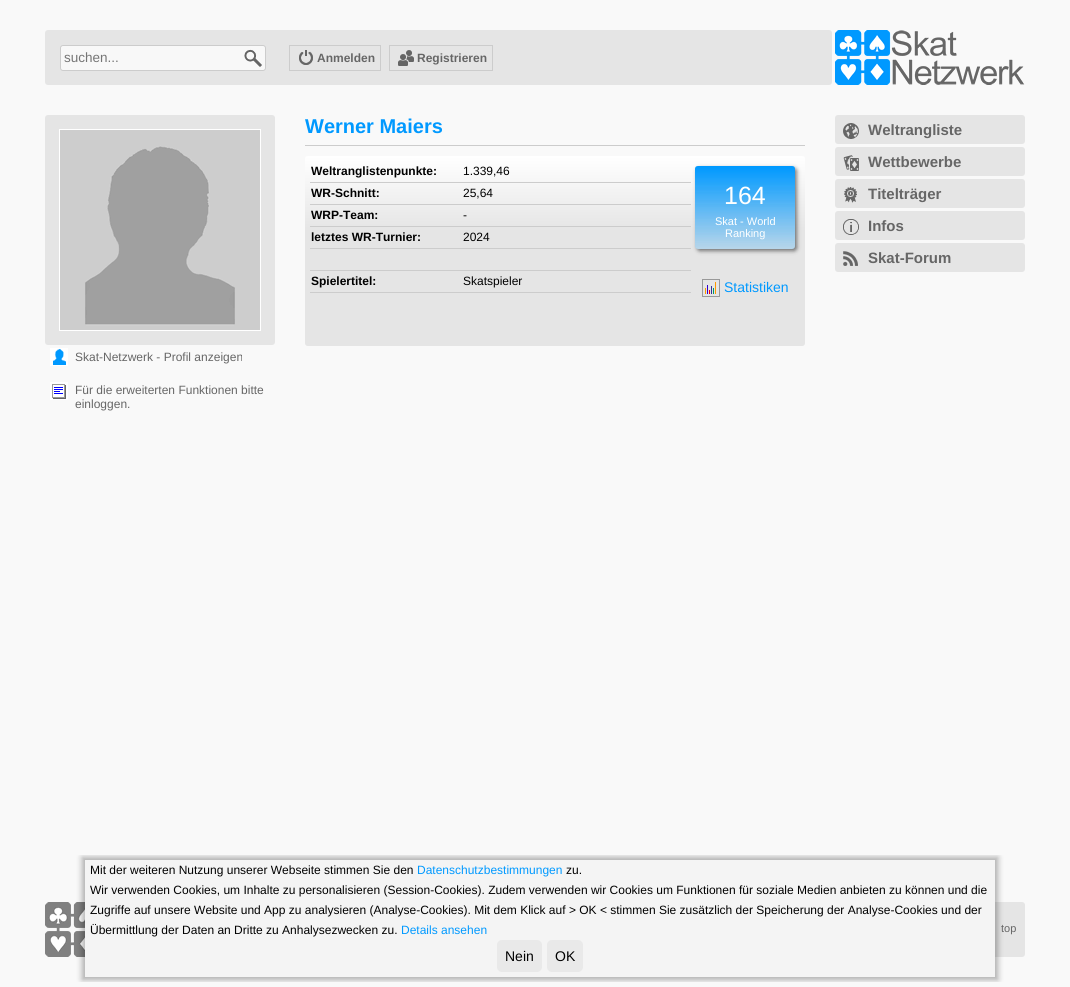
import math
import cairo

surface = cairo.ImageSurface(cairo.FORMAT_RGB24, 1070, 987)
ctx = cairo.Context(surface)
options = cairo.FontOptions()
options.set_hint_metrics(cairo.HINT_METRICS_OFF)
options.set_hint_style(cairo.HINT_STYLE_NONE)
ctx.set_font_options(options)
ctx.set_miter_limit(4)


def round_rect(x, y, w, h, r):
    ctx.new_sub_path()
    for i, (u, v) in enumerate([(x + w - r, y + h - r), (x + r, y + h - r), (x + r, y + r), (x + w - r, y + r)]):
        ctx.arc(u, v, r, i * math.pi / 2, (i + 1) * math.pi / 2)
    ctx.close_path()


def shadow(x, y, w, h, r, blur, alpha):
    ctx.push_group_with_content(cairo.CONTENT_ALPHA)
    ctx.set_operator(cairo.OPERATOR_SOURCE)
    for i in range(15, -16, -2):
        e = blur * i / 6
        if min(w, h) + 2 * e > 0:
            ctx.set_source_rgba(0, 0, 0, alpha * math.erfc((i - 1) / 8.5) / 2)
            round_rect(x - e, y - e, w + 2 * e, h + 2 * e, max(0, min(r + e + blur * .6, min(w, h) / 2 + e)))
            ctx.fill()
    ctx.mask(ctx.pop_group())


def picture(path, x, y, w, h):
    ctx.save()
    ctx.set_source_surface(cairo.ImageSurface.create_from_png(path), x, y)
    ctx.rectangle(x, y, w, h)
    ctx.fill()
    ctx.restore()


ctx.set_source_rgb(0.973, 0.973, 0.973)
ctx.paint()
ctx.set_source_rgb(0.898, 0.898, 0.898)
round_rect(45, 30, 787, 55, 3)
ctx.fill()
ctx.set_source_rgb(0.969, 0.969, 0.969)
round_rect(60.5, 45.5, 205, 25, 2.5)
ctx.fill_preserve()
ctx.set_source_rgb(0.8, 0.8, 0.8)
ctx.set_line_width(1)
ctx.stroke()
ctx.select_font_face("Liberation Sans")
ctx.set_font_size(13.5)
ctx.set_source_rgb(0.459, 0.459, 0.459)
ctx.move_to(64, 62)
ctx.show_text("suchen...")
picture("img1.png", 244, 49, 18, 18)
ctx.rectangle(289.5, 45.5, 91, 25)
ctx.set_source_rgb(0.8, 0.8, 0.8)
ctx.stroke()
picture("img2.png", 299, 50, 14, 15)
ctx.select_font_face("Liberation Sans", cairo.FONT_SLANT_NORMAL, cairo.FONT_WEIGHT_BOLD)
ctx.set_font_size(12)
ctx.set_source_rgb(0.4, 0.4, 0.4)
ctx.move_to(317, 62)
ctx.show_text("Anmelden")
ctx.rectangle(389.5, 45.5, 103, 25)
ctx.set_source_rgb(0.8, 0.8, 0.8)
ctx.stroke()
picture("img3.png", 398, 50, 16, 16)
ctx.set_source_rgb(0.4, 0.4, 0.4)
ctx.move_to(417, 62)
ctx.show_text("Registrieren")
picture("img4.png", 835, 30, 190, 55)
ctx.set_source_rgb(0.8, 0.8, 0.8)
ctx.rectangle(305, 145, 500, 1)
ctx.fill()
ctx.set_font_size(20)
ctx.set_source_rgb(0, 0.6, 1)
ctx.move_to(305, 133)
ctx.show_text("Werner Maiers")
picture("img5.png", 305, 156, 500, 190)
ctx.set_font_size(12)
ctx.set_source_rgb(0, 0, 0)
ctx.move_to(311, 175)
ctx.show_text("Weltranglistenpunkte:")
ctx.set_source_rgb(0.8, 0.8, 0.8)
ctx.rectangle(310, 182, 381, 1)
ctx.fill()
ctx.select_font_face("Liberation Sans")
ctx.set_source_rgb(0, 0, 0)
ctx.move_to(463, 175)
ctx.show_text("1.339,46")
ctx.select_font_face("Liberation Sans", cairo.FONT_SLANT_NORMAL, cairo.FONT_WEIGHT_BOLD)
ctx.move_to(311, 197)
ctx.show_text("WR-Schnitt:")
ctx.set_source_rgb(0.8, 0.8, 0.8)
ctx.rectangle(310, 204, 381, 1)
ctx.fill()
ctx.select_font_face("Liberation Sans")
ctx.set_source_rgb(0, 0, 0)
ctx.move_to(463, 197)
ctx.show_text("25,64")
ctx.select_font_face("Liberation Sans", cairo.FONT_SLANT_NORMAL, cairo.FONT_WEIGHT_BOLD)
ctx.move_to(311, 219)
ctx.show_text("WRP-Team:")
ctx.set_source_rgb(0.8, 0.8, 0.8)
ctx.rectangle(310, 226, 381, 1)
ctx.fill()
ctx.select_font_face("Liberation Sans")
ctx.set_source_rgb(0, 0, 0)
ctx.move_to(463, 219)
ctx.show_text("-")
ctx.select_font_face("Liberation Sans", cairo.FONT_SLANT_NORMAL, cairo.FONT_WEIGHT_BOLD)
ctx.move_to(311, 241)
ctx.show_text("letztes WR-Turnier:")
ctx.set_source_rgb(0.8, 0.8, 0.8)
ctx.rectangle(310, 248, 381, 1)
ctx.fill()
ctx.select_font_face("Liberation Sans")
ctx.set_source_rgb(0, 0, 0)
ctx.move_to(463, 241)
ctx.show_text("2024")
ctx.set_source_rgb(0.8, 0.8, 0.8)
ctx.rectangle(310, 270, 381, 1)
ctx.fill()
ctx.select_font_face("Liberation Sans", cairo.FONT_SLANT_NORMAL, cairo.FONT_WEIGHT_BOLD)
ctx.set_source_rgb(0, 0, 0)
ctx.move_to(311, 285)
ctx.show_text("Spielertitel:")
ctx.set_source_rgb(0.8, 0.8, 0.8)
ctx.rectangle(310, 292, 381, 1)
ctx.fill()
ctx.select_font_face("Liberation Sans")
ctx.set_source_rgb(0, 0, 0)
ctx.move_to(463, 285)
ctx.show_text("Skatspieler")
ctx.set_source_rgb(0, 0, 0)
shadow(697, 168, 100, 83, 3, 2, 0.5)
picture("img6.png", 695, 166, 100, 83)
ctx.set_font_size(25)
ctx.set_source_rgb(1, 1, 1)
ctx.move_to(724, 204)
ctx.show_text("164")
ctx.set_font_size(11)
ctx.move_to(715, 225)
ctx.show_text("Skat - World")
ctx.move_to(725, 237)
ctx.show_text("Ranking")
picture("img7.png", 702, 279, 18, 18)
ctx.set_font_size(14)
ctx.set_source_rgb(0, 0.6, 1)
ctx.move_to(724, 292)
ctx.show_text("Statistiken")
ctx.set_source_rgb(0.898, 0.898, 0.898)
round_rect(45, 115, 230, 230, 3)
ctx.fill()
picture("img8.png", 60, 130, 200, 200)
ctx.rectangle(59.5, 129.5, 201, 201)
ctx.set_source_rgb(1, 1, 1)
ctx.stroke()
picture("img9.png", 50, 348, 18, 18)
ctx.set_font_size(12)
ctx.set_source_rgb(0.4, 0.4, 0.4)
ctx.move_to(75, 361)
ctx.show_text("Skat-Netzwerk - Profil anzeigen")
picture("img10.png", 50, 382, 18, 18)
ctx.move_to(75, 394)
ctx.show_text("Für die erweiterten Funktionen bitte")
ctx.move_to(75, 408)
ctx.show_text("einloggen.")
ctx.set_source_rgb(0.898, 0.898, 0.898)
round_rect(835, 115, 190, 29, 3)
ctx.fill()
picture("img11.png", 843, 123, 16, 16)
ctx.select_font_face("Liberation Sans", cairo.FONT_SLANT_NORMAL, cairo.FONT_WEIGHT_BOLD)
ctx.set_font_size(15)
ctx.set_source_rgb(0.4, 0.4, 0.4)
ctx.move_to(868, 135)
ctx.show_text("Weltrangliste")
ctx.set_source_rgb(0.898, 0.898, 0.898)
round_rect(835, 147, 190, 29, 3)
ctx.fill()
picture("img12.png", 843, 155, 16, 16)
ctx.set_source_rgb(0.4, 0.4, 0.4)
ctx.move_to(868, 167)
ctx.show_text("Wettbewerbe")
ctx.set_source_rgb(0.898, 0.898, 0.898)
round_rect(835, 179, 190, 29, 3)
ctx.fill()
picture("img13.png", 844, 187, 13, 16)
ctx.set_source_rgb(0.4, 0.4, 0.4)
ctx.move_to(868, 199)
ctx.show_text("Titelträger")
ctx.set_source_rgb(0.898, 0.898, 0.898)
round_rect(835, 211, 190, 29, 3)
ctx.fill()
picture("img14.png", 843, 219, 16, 16)
ctx.set_source_rgb(0.4, 0.4, 0.4)
ctx.move_to(868, 231)
ctx.show_text("Infos")
ctx.set_source_rgb(0.898, 0.898, 0.898)
round_rect(835, 243, 190, 29, 3)
ctx.fill()
picture("img15.png", 843, 251, 15, 15)
ctx.set_source_rgb(0.4, 0.4, 0.4)
ctx.move_to(868, 263)
ctx.show_text("Skat-Forum")
picture("img16.png", 45, 902, 40, 55)
ctx.set_source_rgb(0.898, 0.898, 0.898)
round_rect(103, 902, 922, 55, 3)
ctx.fill()
ctx.save()
ctx.rectangle(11, 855, 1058, 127)
ctx.clip()
ctx.set_source_rgb(0, 0, 0)
shadow(82, 857, 916, 123, 0, 3, 0.3)
ctx.restore()
ctx.set_source_rgb(0.957, 0.957, 0.957)
ctx.rectangle(85, 860, 910, 117)
ctx.fill()
ctx.select_font_face("Liberation Sans")
ctx.set_font_size(12)
ctx.set_source_rgb(0, 0, 0)
ctx.move_to(90, 874)
ctx.show_text("Mit der weiteren Nutzung unserer Webseite stimmen Sie den")
ctx.set_source_rgb(0, 0.6, 1)
ctx.move_to(417, 874)
ctx.show_text("Datenschutzbestimmungen")
ctx.set_source_rgb(0, 0, 0)
ctx.move_to(566, 874)
ctx.show_text("zu.")
ctx.move_to(90, 894)
ctx.show_text("Wir verwenden Cookies, um Inhalte zu personalisieren (Session-Cookies). Zudem verwenden wir Cookies um Funktionen für soziale Medien anbieten zu können und die")
ctx.move_to(90, 914)
ctx.show_text("Zugriffe auf unsere Website und App zu analysieren (Analyse-Cookies). Mit dem Klick auf > OK < stimmen Sie zusätzlich der Speicherung der Analyse-Cookies und der")
ctx.move_to(90, 934)
ctx.show_text("Übermittlung der Daten an Dritte zu Anhalysezwecken zu.")
ctx.set_source_rgb(0, 0.6, 1)
ctx.move_to(401, 934)
ctx.show_text("Details ansehen")
ctx.set_source_rgb(0.914, 0.914, 0.914)
round_rect(497, 940, 45, 32, 5)
ctx.fill()
ctx.set_font_size(14)
ctx.set_source_rgb(0, 0, 0)
ctx.move_to(505, 961)
ctx.show_text("Nein")
ctx.set_source_rgb(0.914, 0.914, 0.914)
round_rect(547, 940, 36, 32, 5)
ctx.fill()
ctx.set_source_rgb(0, 0, 0)
ctx.move_to(555, 961)
ctx.show_text("OK")
ctx.set_font_size(11)
ctx.set_source_rgb(0.4, 0.4, 0.4)
ctx.move_to(1001, 932)
ctx.show_text("top")
surface.write_to_png("page.png")
